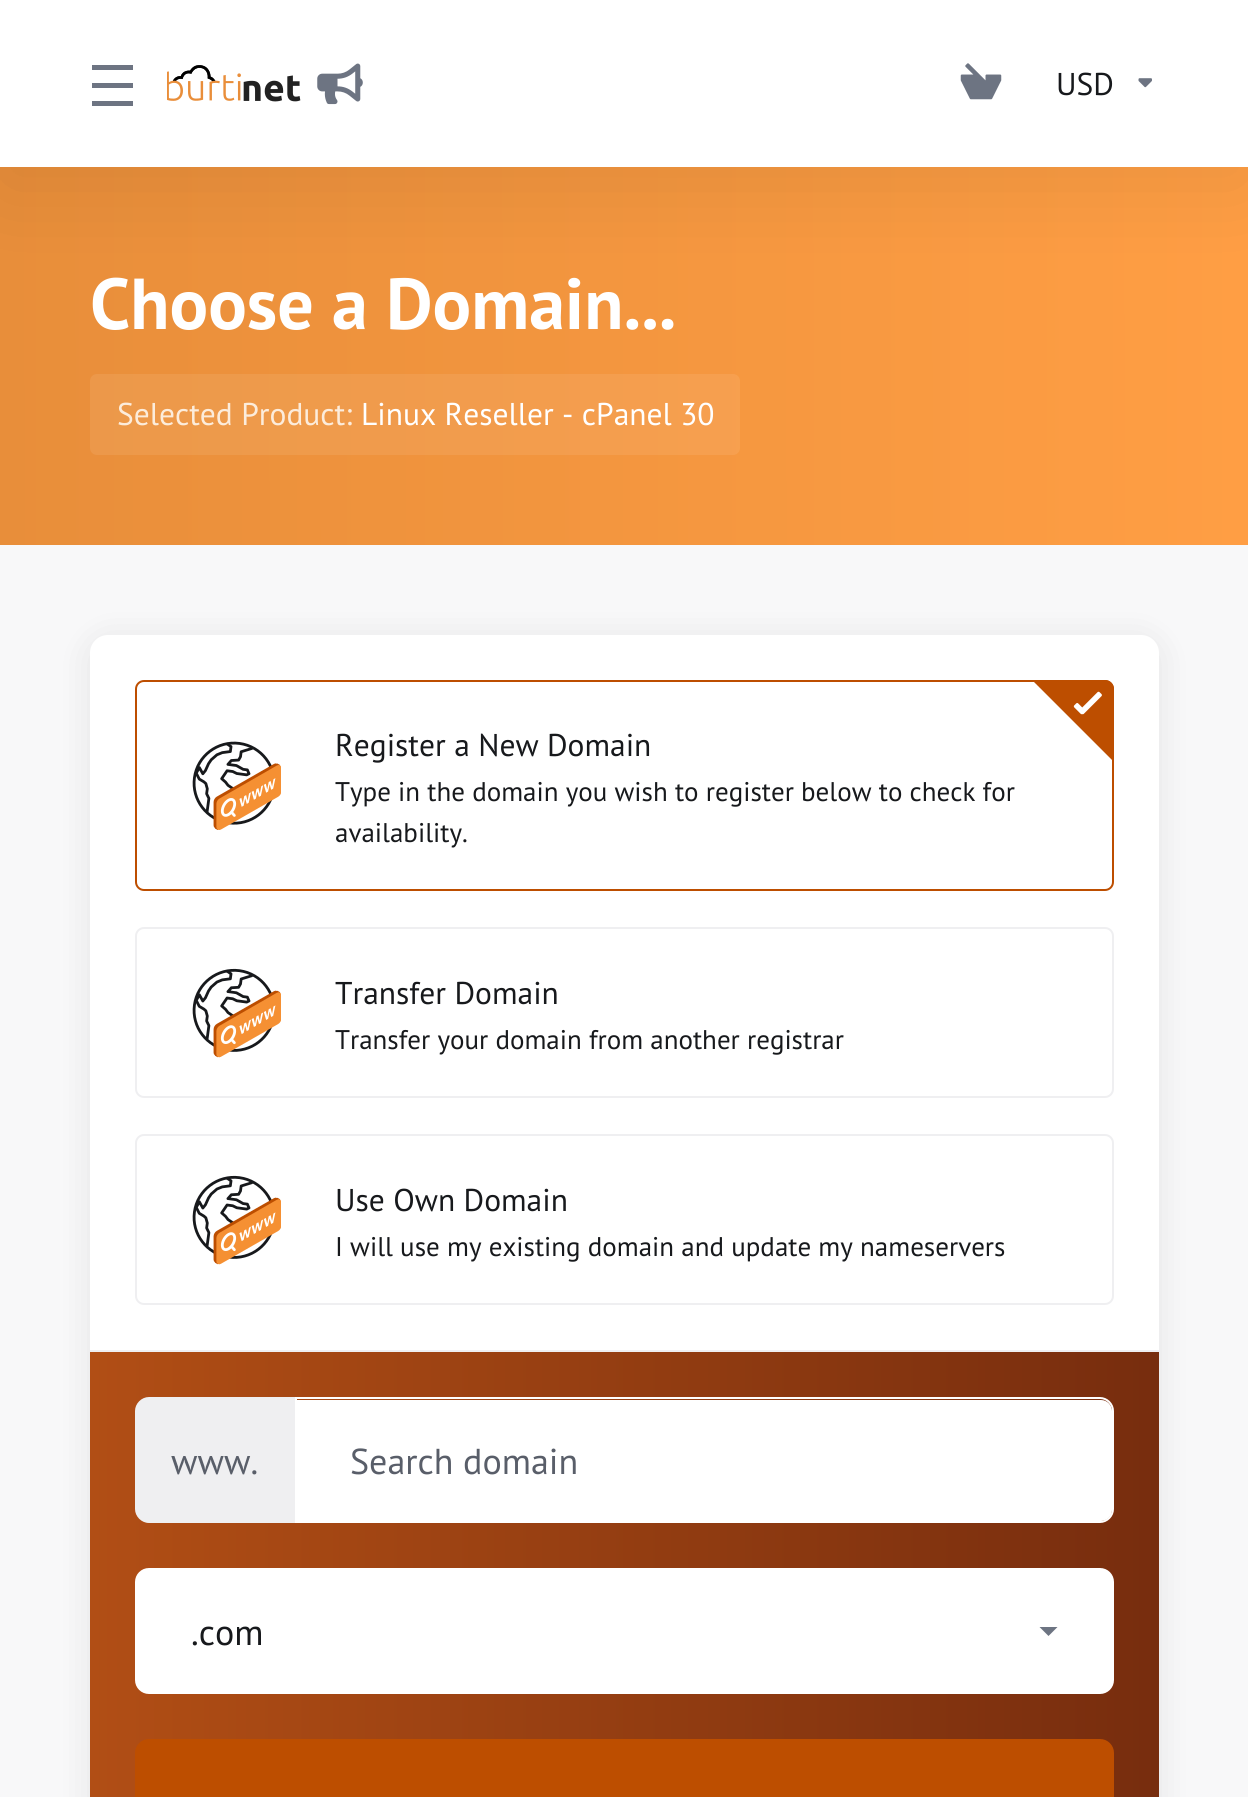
import math
import cairo

surface = cairo.ImageSurface(cairo.FORMAT_RGB24, 1248, 1797)
ctx = cairo.Context(surface)
options = cairo.FontOptions()
options.set_hint_metrics(cairo.HINT_METRICS_OFF)
options.set_hint_style(cairo.HINT_STYLE_NONE)
ctx.set_font_options(options)
ctx.set_miter_limit(4)


def round_rect(x, y, w, h, r):
    ctx.new_sub_path()
    for i, (u, v) in enumerate([(x + w - r, y + h - r), (x + r, y + h - r), (x + r, y + r), (x + w - r, y + r)]):
        ctx.arc(u, v, r, i * math.pi / 2, (i + 1) * math.pi / 2)
    ctx.close_path()


def shadow(x, y, w, h, r, blur, alpha):
    ctx.push_group_with_content(cairo.CONTENT_ALPHA)
    ctx.set_operator(cairo.OPERATOR_SOURCE)
    for i in range(15, -16, -2):
        e = blur * i / 6
        if min(w, h) + 2 * e > 0:
            ctx.set_source_rgba(0, 0, 0, alpha * math.erfc((i - 1) / 8.5) / 2)
            round_rect(x - e, y - e, w + 2 * e, h + 2 * e, max(0, min(r + e + blur * .6, min(w, h) / 2 + e)))
            ctx.fill()
    ctx.mask(ctx.pop_group())


def picture(path, x, y, w, h):
    ctx.save()
    ctx.set_source_surface(cairo.ImageSurface.create_from_png(path), x, y)
    ctx.rectangle(x, y, w, h)
    ctx.fill()
    ctx.restore()


ctx.set_source_rgb(0.969, 0.969, 0.973)
ctx.paint()
gradient = cairo.LinearGradient(0, 356, 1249, 355)
gradient.add_color_stop_rgba(0, 0.91, 0.557, 0.227, 1)
gradient.add_color_stop_rgba(1, 1, 0.62, 0.267, 1)
ctx.set_source(gradient)
ctx.rectangle(0, 167, 1248, 378)
ctx.fill()
ctx.set_source_rgb(0, 0, 0)
shadow(0, 18, 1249, 167, 0, 45, 0.08)
ctx.set_source_rgb(1, 1, 1)
ctx.rectangle(0, 0, 1248, 167)
ctx.fill()
ctx.set_source_rgb(0.427, 0.455, 0.51)
ctx.rectangle(92, 65, 41, 5)
ctx.fill()
ctx.rectangle(92, 83, 41, 5)
ctx.fill()
ctx.rectangle(92, 101, 41, 5)
ctx.fill()
picture("img1.png", 167, 65, 134, 37)
picture("img2.png", 317, 63, 46, 42)
picture("img3.png", 960, 63, 42, 37)
ctx.select_font_face("PT Sans")
ctx.set_font_size(31.5)
ctx.set_source_rgb(0.09, 0.098, 0.11)
ctx.move_to(1056, 95)
ctx.show_text("USD")
picture("img4.png", 1138, 78, 14, 10)
ctx.select_font_face("PT Sans", cairo.FONT_SLANT_NORMAL, cairo.FONT_WEIGHT_BOLD)
ctx.set_font_size(72)
ctx.set_source_rgb(1, 1, 1)
ctx.move_to(90, 329)
ctx.show_text("Choose a Domain...")
ctx.set_source_rgba(1, 1, 1, 0.08)
round_rect(90, 374, 650, 81, 7)
ctx.fill()
ctx.select_font_face("PT Sans")
ctx.set_font_size(31.5)
ctx.set_source_rgb(0.988, 0.922, 0.859)
ctx.move_to(117, 425)
ctx.show_text("Selected Product:")
ctx.set_source_rgb(1, 1, 1)
ctx.move_to(361, 425)
ctx.show_text("Linux Reseller - cPanel 30")
ctx.set_source_rgb(0, 0, 0)
shadow(90, 639, 1069, 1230, 18, 18, 0.08)
ctx.set_source_rgb(1, 1, 1)
round_rect(90, 635, 1069, 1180, 18)
ctx.fill()
round_rect(136, 681, 977, 209, 8)
ctx.set_source_rgb(0.741, 0.306, 0)
ctx.stroke()
ctx.new_path()
ctx.move_to(1114, 762)
ctx.line_to(1114, 689)
ctx.curve_to(1114, 684, 1110, 680, 1105, 680)
ctx.line_to(1032, 680)
ctx.close_path()
ctx.fill()
picture("img5.png", 1073, 691, 29, 24)
picture("img6.png", 192, 741, 89, 89)
ctx.set_source_rgb(0.09, 0.098, 0.11)
ctx.move_to(335, 756)
ctx.show_text("Register a New Domain")
ctx.set_font_size(27)
ctx.move_to(335, 801)
ctx.show_text("Type in the domain you wish to register below to check for")
ctx.move_to(335, 842)
ctx.show_text("availability.")
round_rect(136, 928, 977, 169, 8)
ctx.set_source_rgb(0.937, 0.937, 0.945)
ctx.stroke()
picture("img7.png", 192, 968, 89, 90)
ctx.set_font_size(31.5)
ctx.set_source_rgb(0.09, 0.098, 0.11)
ctx.move_to(335, 1004)
ctx.show_text("Transfer Domain")
ctx.set_font_size(27)
ctx.move_to(335, 1049)
ctx.show_text("Transfer your domain from another registrar")
round_rect(136, 1135, 977, 169, 8)
ctx.set_source_rgb(0.937, 0.937, 0.945)
ctx.stroke()
picture("img7.png", 192, 1175, 89, 90)
ctx.set_font_size(31.5)
ctx.set_source_rgb(0.09, 0.098, 0.11)
ctx.move_to(335, 1211)
ctx.show_text("Use Own Domain")
ctx.set_font_size(27)
ctx.move_to(335, 1256)
ctx.show_text("I will use my existing domain and update my nameservers")
gradient = cairo.LinearGradient(90, 1631, 1159, 1631)
gradient.add_color_stop_rgba(0, 0.694, 0.306, 0.082, 1)
gradient.add_color_stop_rgba(1, 0.467, 0.176, 0.055, 1)
ctx.set_source(gradient)
ctx.rectangle(90, 1352, 1069, 445)
ctx.fill()
ctx.set_source_rgb(0.937, 0.937, 0.945)
ctx.rectangle(90, 1350, 1069, 2)
ctx.fill()
ctx.new_path()
ctx.move_to(149, 1397)
ctx.line_to(295, 1397)
ctx.line_to(295, 1523)
ctx.line_to(149, 1523)
ctx.curve_to(141.5, 1523, 135, 1516.5, 135, 1509)
ctx.line_to(135, 1411)
ctx.curve_to(135, 1403.5, 141.5, 1397, 149, 1397)
ctx.close_path()
ctx.fill()
ctx.set_font_size(36)
ctx.set_source_rgb(0.349, 0.369, 0.412)
ctx.move_to(171, 1474)
ctx.show_text("www.")
ctx.set_source_rgb(1, 1, 1)
ctx.new_path()
ctx.move_to(297, 1400)
ctx.line_to(1101, 1400)
ctx.curve_to(1107, 1400, 1112, 1405, 1112, 1411)
ctx.line_to(1112, 1510)
ctx.curve_to(1112, 1516, 1107, 1521, 1101, 1521)
ctx.line_to(297, 1521)
ctx.close_path()
ctx.fill()
ctx.new_path()
ctx.move_to(296, 1398)
ctx.line_to(1100, 1398)
ctx.curve_to(1107, 1398, 1113, 1404, 1113, 1411)
ctx.line_to(1113, 1509)
ctx.curve_to(1113, 1516, 1107, 1522, 1100, 1522)
ctx.line_to(296, 1522)
ctx.close_path()
ctx.stroke()
ctx.set_source_rgb(0.349, 0.369, 0.412)
ctx.move_to(350, 1474)
ctx.show_text("Search domain")
ctx.set_source_rgb(1, 1, 1)
round_rect(136, 1569, 977, 124, 13)
ctx.fill_preserve()
ctx.stroke()
ctx.set_source_rgb(0.09, 0.098, 0.11)
ctx.move_to(191, 1645)
ctx.show_text(".com")
ctx.set_source_rgb(0.427, 0.455, 0.51)
ctx.new_path()
ctx.move_to(1039.5, 1627)
ctx.line_to(1057.5, 1627)
ctx.line_to(1048.5, 1636)
ctx.close_path()
ctx.fill()
ctx.set_source_rgb(0.741, 0.306, 0)
round_rect(136, 1740, 977, 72, 13)
ctx.fill_preserve()
ctx.stroke()
surface.write_to_png("page.png")
